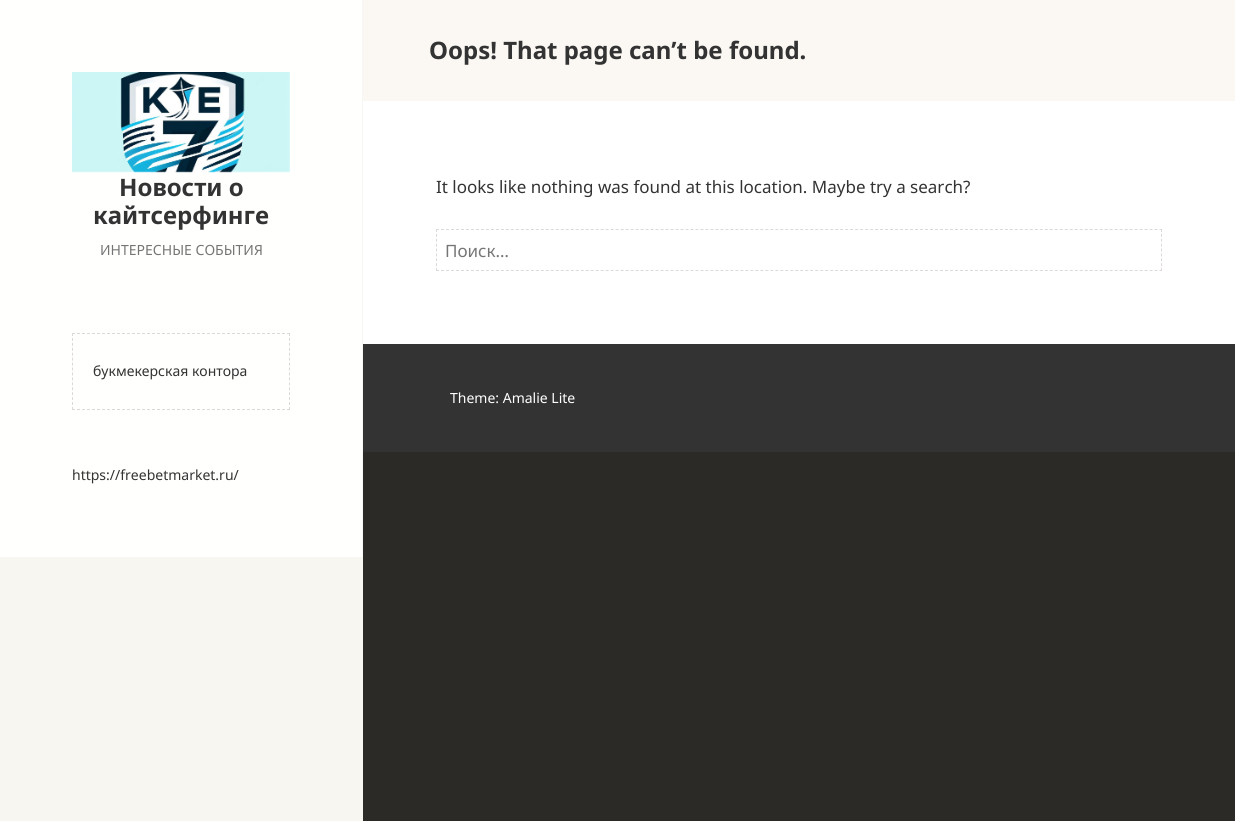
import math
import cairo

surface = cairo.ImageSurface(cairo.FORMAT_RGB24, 1235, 821)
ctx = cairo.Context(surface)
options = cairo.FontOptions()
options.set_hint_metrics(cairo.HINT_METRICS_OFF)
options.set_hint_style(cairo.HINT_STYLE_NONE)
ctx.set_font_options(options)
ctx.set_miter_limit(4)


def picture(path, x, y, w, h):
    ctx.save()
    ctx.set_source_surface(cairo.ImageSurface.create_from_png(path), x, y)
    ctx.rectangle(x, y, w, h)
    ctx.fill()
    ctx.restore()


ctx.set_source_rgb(0.169, 0.165, 0.149)
ctx.paint()
ctx.set_source_rgb(1, 1, 0.996)
ctx.rectangle(0, 0, 362, 557)
ctx.fill()
ctx.set_source_rgb(0.965, 0.965, 0.965)
ctx.rectangle(362, 0, 1, 557)
ctx.fill()
picture("img1.png", 72, 72, 218, 101)
ctx.select_font_face("Noto Sans", cairo.FONT_SLANT_NORMAL, cairo.FONT_WEIGHT_BOLD)
ctx.set_font_size(24)
ctx.set_source_rgb(0.2, 0.2, 0.2)
ctx.move_to(119, 196)
ctx.show_text("Новости о")
ctx.move_to(93, 224)
ctx.show_text("кайтсерфинге")
ctx.select_font_face("Noto Sans")
ctx.set_font_size(14)
ctx.set_source_rgb(0.459, 0.459, 0.459)
ctx.move_to(100, 255)
ctx.show_text("ИНТЕРЕСНЫЕ СОБЫТИЯ")
ctx.new_path()
ctx.move_to(72, 333.5)
ctx.line_to(290, 333.5)
ctx.set_source_rgb(0.867, 0.851, 0.839)
ctx.set_line_width(1)
ctx.set_dash([3, 2])
ctx.stroke()
ctx.new_path()
ctx.move_to(289.5, 333)
ctx.line_to(289.5, 410)
ctx.set_dash([3, 1.93])
ctx.stroke()
ctx.new_path()
ctx.move_to(72, 409.5)
ctx.line_to(290, 409.5)
ctx.set_dash([3, 2])
ctx.stroke()
ctx.new_path()
ctx.move_to(72.5, 333)
ctx.line_to(72.5, 410)
ctx.set_dash([3, 1.93])
ctx.stroke()
ctx.set_source_rgb(0.2, 0.2, 0.2)
ctx.move_to(93, 376)
ctx.show_text("букмекерская контора")
ctx.move_to(72, 480)
ctx.show_text("https://freebetmarket.ru/")
ctx.set_source_rgb(1, 1, 1)
ctx.rectangle(363, 101, 872, 243)
ctx.fill()
ctx.set_source_rgb(0.984, 0.969, 0.957)
ctx.rectangle(363, 0, 872, 101)
ctx.fill()
ctx.select_font_face("Noto Sans", cairo.FONT_SLANT_NORMAL, cairo.FONT_WEIGHT_BOLD)
ctx.set_font_size(24)
ctx.set_source_rgb(0.2, 0.2, 0.2)
ctx.move_to(429, 59)
ctx.show_text("Oops! That page can’t be found.")
ctx.select_font_face("Noto Sans")
ctx.set_font_size(17)
ctx.move_to(436, 193)
ctx.show_text("It looks like nothing was found at this location. Maybe try a search?")
ctx.new_path()
ctx.move_to(436, 229.5)
ctx.line_to(1162, 229.5)
ctx.set_source_rgb(0.867, 0.851, 0.839)
ctx.set_dash([3, 1.99])
ctx.stroke()
ctx.new_path()
ctx.move_to(1161.5, 229)
ctx.line_to(1161.5, 271)
ctx.set_dash([3, 1.88])
ctx.stroke()
ctx.new_path()
ctx.move_to(436, 270.5)
ctx.line_to(1162, 270.5)
ctx.set_dash([3, 1.99])
ctx.stroke()
ctx.new_path()
ctx.move_to(436.5, 229)
ctx.line_to(436.5, 271)
ctx.set_dash([3, 1.88])
ctx.stroke()
ctx.set_source_rgb(0.459, 0.459, 0.459)
ctx.move_to(445, 257)
ctx.show_text("Поиск…")
ctx.set_source_rgb(0.2, 0.2, 0.2)
ctx.rectangle(363, 344, 872, 108)
ctx.fill()
ctx.set_font_size(14)
ctx.set_source_rgb(1, 1, 1)
ctx.move_to(450, 403)
ctx.show_text("Theme: Amalie Lite")
ctx.set_source_rgb(0.965, 0.961, 0.941)
ctx.rectangle(0, 557, 363, 264)
ctx.fill()
surface.write_to_png("page.png")
